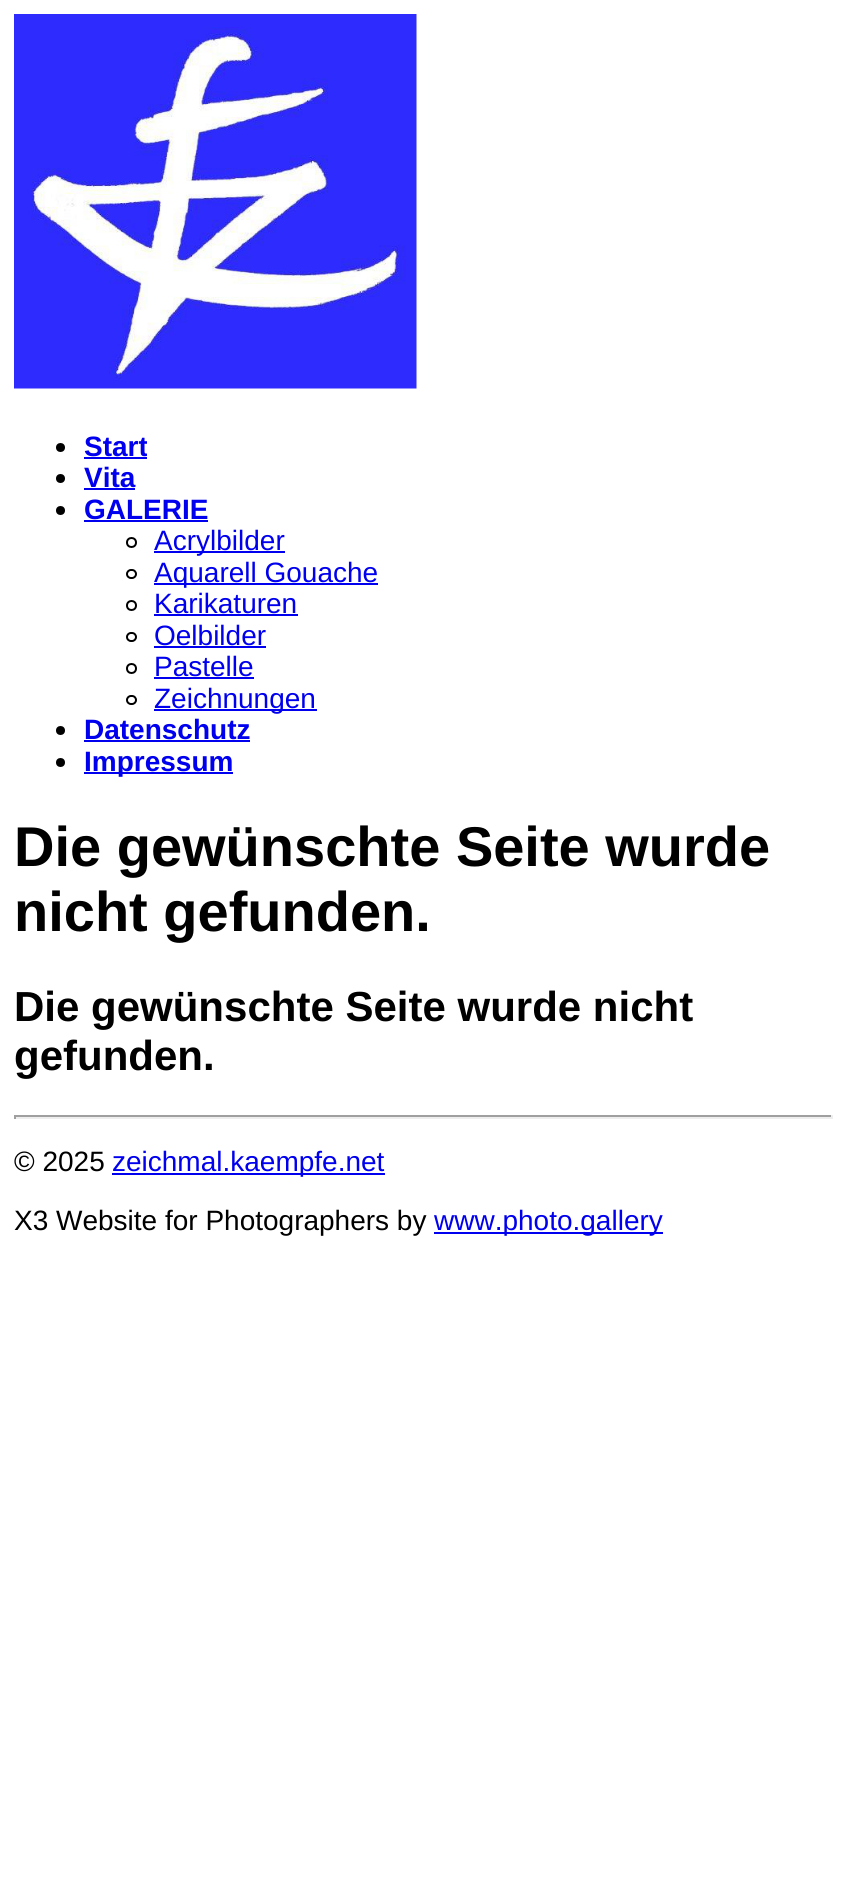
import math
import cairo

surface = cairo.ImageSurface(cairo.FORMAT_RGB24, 846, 1893)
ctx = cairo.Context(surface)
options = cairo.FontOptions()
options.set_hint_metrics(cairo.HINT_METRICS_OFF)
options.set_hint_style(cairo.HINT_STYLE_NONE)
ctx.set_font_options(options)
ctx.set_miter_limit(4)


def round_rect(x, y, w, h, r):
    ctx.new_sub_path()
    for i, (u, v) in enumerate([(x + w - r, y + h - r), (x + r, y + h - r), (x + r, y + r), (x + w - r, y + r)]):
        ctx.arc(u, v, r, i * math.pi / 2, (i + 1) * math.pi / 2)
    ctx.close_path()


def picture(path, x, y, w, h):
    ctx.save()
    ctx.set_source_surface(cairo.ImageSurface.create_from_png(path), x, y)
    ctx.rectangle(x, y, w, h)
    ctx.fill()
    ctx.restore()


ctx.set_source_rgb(1, 1, 1)
ctx.paint()
picture("img1.png", 14, 14, 403, 375)
ctx.set_source_rgb(0, 0, 0)
ctx.arc(60.5, 447.5, 4.5, 0, 2 * math.pi)
ctx.fill()
ctx.select_font_face("Liberation Sans", cairo.FONT_SLANT_NORMAL, cairo.FONT_WEIGHT_BOLD)
ctx.set_font_size(28)
ctx.set_source_rgb(0, 0, 0.933)
ctx.move_to(84, 456)
ctx.show_text("Start")
ctx.rectangle(84, 457, 63, 2)
ctx.fill()
ctx.set_source_rgb(0, 0, 0)
ctx.arc(60.5, 478.5, 4.5, 0, 2 * math.pi)
ctx.fill()
ctx.set_source_rgb(0, 0, 0.933)
ctx.move_to(84, 487)
ctx.show_text("Vita")
ctx.rectangle(84, 488, 51, 2)
ctx.fill()
ctx.set_source_rgb(0, 0, 0)
ctx.arc(60.5, 510.5, 4.5, 0, 2 * math.pi)
ctx.fill()
ctx.set_source_rgb(0, 0, 0.933)
ctx.move_to(84, 519)
ctx.show_text("GALERIE")
ctx.rectangle(84, 520, 124, 2)
ctx.fill()
ctx.arc(131.5, 542.5, 4.5, 0, 2 * math.pi)
ctx.set_source_rgb(0, 0, 0)
ctx.stroke()
ctx.set_source_rgb(0, 0, 0.933)
ctx.rectangle(154, 551, 131, 2)
ctx.fill()
ctx.select_font_face("Liberation Sans")
ctx.move_to(154, 550)
ctx.show_text("Acrylbilder")
round_rect(127, 570, 9, 8, 4)
ctx.set_source_rgb(0, 0, 0)
ctx.stroke()
ctx.set_source_rgb(0, 0, 0.933)
ctx.rectangle(154, 583, 224, 2)
ctx.fill()
ctx.move_to(154, 582)
ctx.show_text("Aquarell Gouache")
ctx.new_path()
ctx.arc(131.5, 605.5, 4.5, 0, 2 * math.pi)
ctx.set_source_rgb(0, 0, 0)
ctx.stroke()
ctx.set_source_rgb(0, 0, 0.933)
ctx.move_to(154, 613)
ctx.show_text("Karikaturen")
ctx.rectangle(154, 614, 144, 2)
ctx.fill()
round_rect(127, 633, 9, 8, 4)
ctx.set_source_rgb(0, 0, 0)
ctx.stroke()
ctx.set_source_rgb(0, 0, 0.933)
ctx.move_to(154, 645)
ctx.show_text("Oelbilder")
ctx.rectangle(154, 646, 112, 2)
ctx.fill()
ctx.arc(131.5, 668.5, 4.5, 0, 2 * math.pi)
ctx.set_source_rgb(0, 0, 0)
ctx.stroke()
ctx.set_source_rgb(0, 0, 0.933)
ctx.move_to(154, 676)
ctx.show_text("Pastelle")
ctx.rectangle(154, 677, 100, 2)
ctx.fill()
round_rect(127, 696, 9, 8, 4)
ctx.set_source_rgb(0, 0, 0)
ctx.stroke()
ctx.set_source_rgb(0, 0, 0.933)
ctx.rectangle(154, 709, 163, 2)
ctx.fill()
ctx.move_to(154, 708)
ctx.show_text("Zeichnungen")
ctx.set_source_rgb(0, 0, 0)
ctx.new_path()
ctx.arc(60.5, 730.5, 4.5, 0, 2 * math.pi)
ctx.fill()
ctx.select_font_face("Liberation Sans", cairo.FONT_SLANT_NORMAL, cairo.FONT_WEIGHT_BOLD)
ctx.set_source_rgb(0, 0, 0.933)
ctx.move_to(84, 739)
ctx.show_text("Datenschutz")
ctx.rectangle(84, 740, 166, 2)
ctx.fill()
ctx.set_source_rgb(0, 0, 0)
ctx.arc(60.5, 762.5, 4.5, 0, 2 * math.pi)
ctx.fill()
ctx.set_source_rgb(0, 0, 0.933)
ctx.rectangle(84, 772, 149, 2)
ctx.fill()
ctx.move_to(84, 771)
ctx.show_text("Impressum")
ctx.set_font_size(56)
ctx.set_source_rgb(0, 0, 0)
ctx.move_to(14, 866)
ctx.show_text("Die gewünschte Seite wurde")
ctx.move_to(14, 931)
ctx.show_text("nicht gefunden.")
ctx.set_font_size(42)
ctx.move_to(14, 1021)
ctx.show_text("Die gewünschte Seite wurde nicht")
ctx.move_to(14, 1070)
ctx.show_text("gefunden.")
ctx.set_source_rgb(0.624, 0.624, 0.624)
ctx.rectangle(14, 1115, 819, 2)
ctx.fill()
ctx.set_source_rgb(0.933, 0.933, 0.933)
ctx.rectangle(831, 1115, 2, 4)
ctx.fill()
ctx.rectangle(14, 1117, 819, 2)
ctx.fill()
ctx.set_source_rgb(0.624, 0.624, 0.624)
ctx.rectangle(14, 1115, 2, 4)
ctx.fill()
ctx.select_font_face("Liberation Sans")
ctx.set_font_size(28)
ctx.set_source_rgb(0, 0, 0)
ctx.move_to(14, 1171)
ctx.show_text("© 2025")
ctx.set_source_rgb(0, 0, 0.933)
ctx.rectangle(112, 1173, 273, 2)
ctx.fill()
ctx.move_to(112, 1171)
ctx.show_text("zeichmal.kaempfe.net")
ctx.set_source_rgb(0, 0, 0)
ctx.move_to(14, 1230)
ctx.show_text("X3 Website for Photographers by")
ctx.set_source_rgb(0, 0, 0.933)
ctx.rectangle(434, 1232, 229, 2)
ctx.fill()
ctx.move_to(434, 1230)
ctx.show_text("www.photo.gallery")
surface.write_to_png("page.png")
